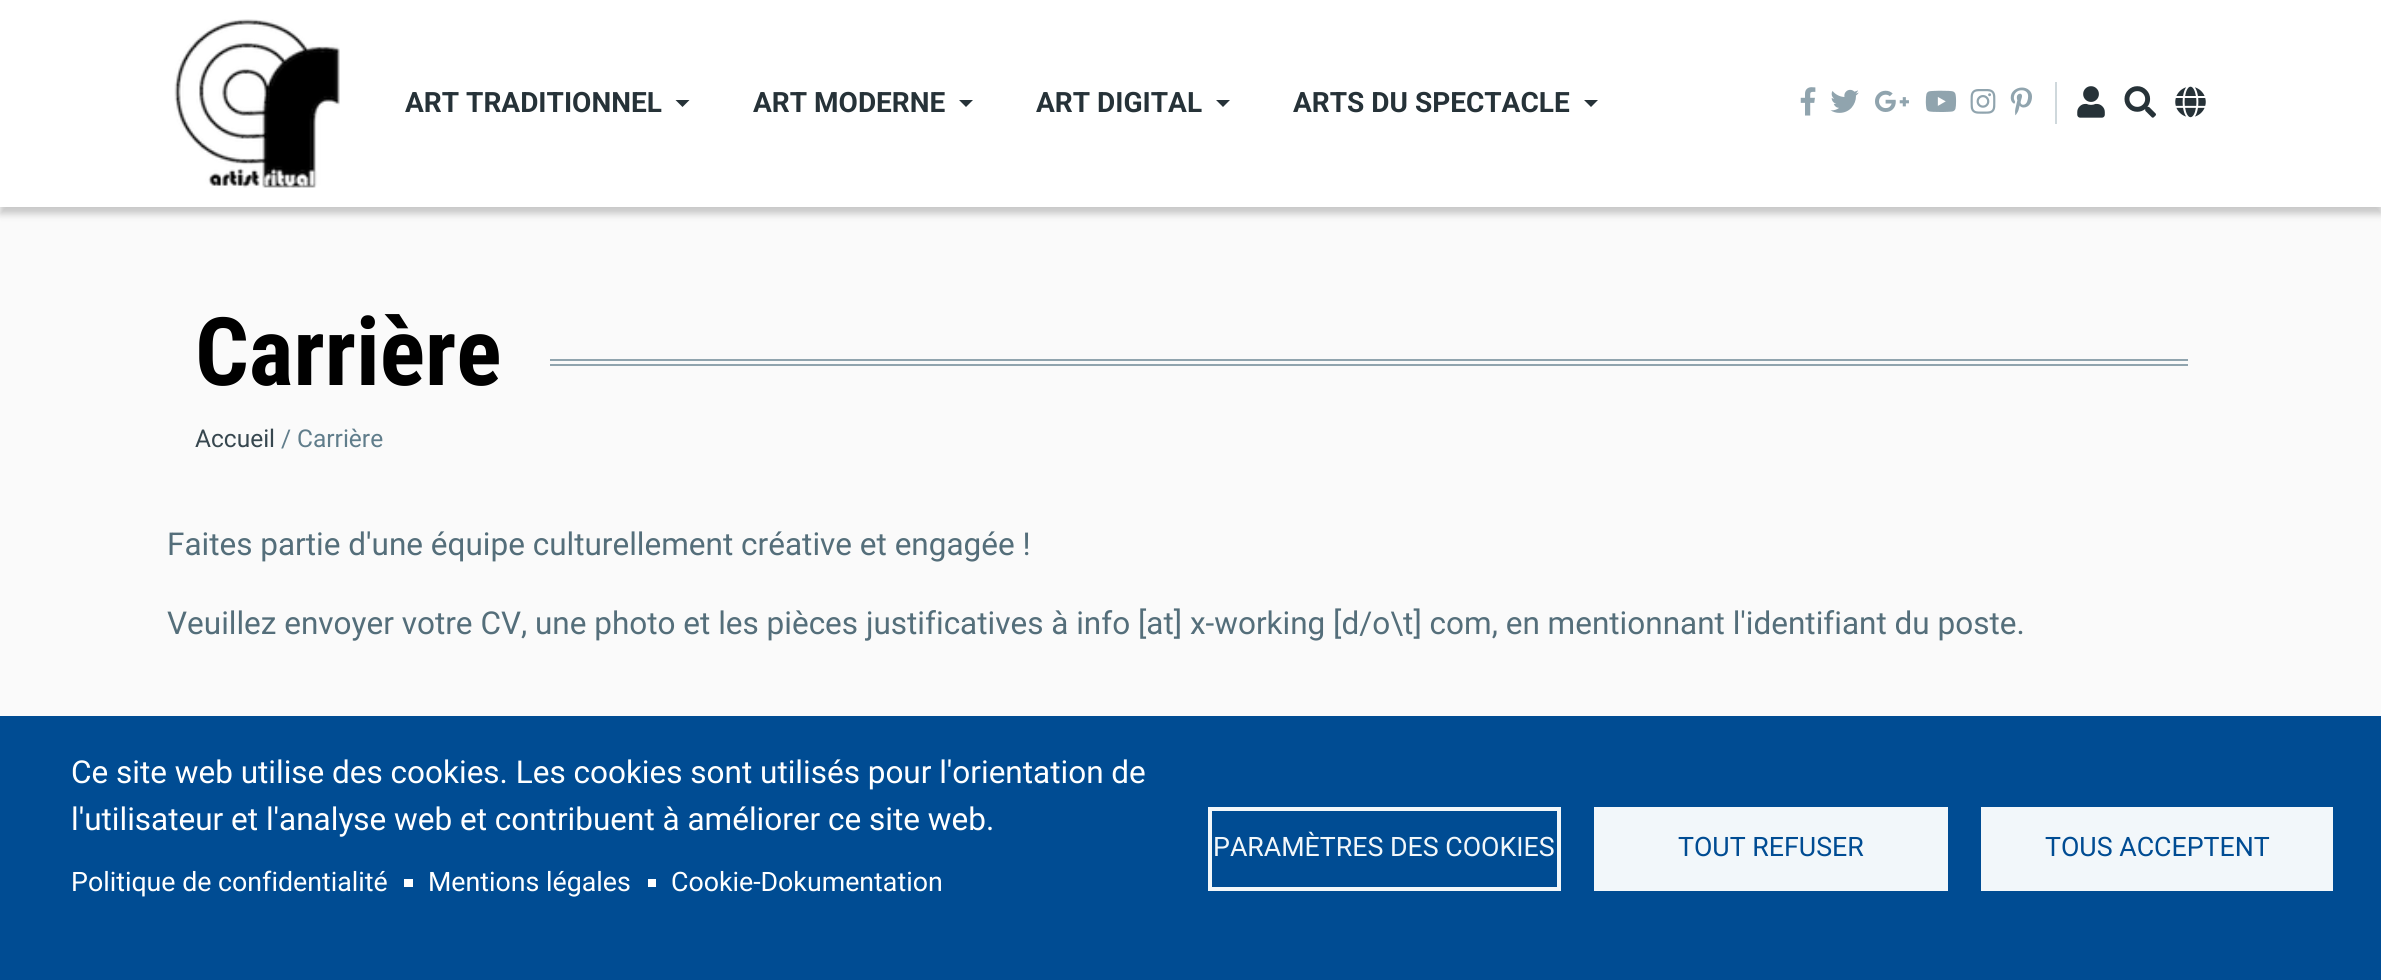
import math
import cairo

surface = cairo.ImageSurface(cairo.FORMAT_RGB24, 2381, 980)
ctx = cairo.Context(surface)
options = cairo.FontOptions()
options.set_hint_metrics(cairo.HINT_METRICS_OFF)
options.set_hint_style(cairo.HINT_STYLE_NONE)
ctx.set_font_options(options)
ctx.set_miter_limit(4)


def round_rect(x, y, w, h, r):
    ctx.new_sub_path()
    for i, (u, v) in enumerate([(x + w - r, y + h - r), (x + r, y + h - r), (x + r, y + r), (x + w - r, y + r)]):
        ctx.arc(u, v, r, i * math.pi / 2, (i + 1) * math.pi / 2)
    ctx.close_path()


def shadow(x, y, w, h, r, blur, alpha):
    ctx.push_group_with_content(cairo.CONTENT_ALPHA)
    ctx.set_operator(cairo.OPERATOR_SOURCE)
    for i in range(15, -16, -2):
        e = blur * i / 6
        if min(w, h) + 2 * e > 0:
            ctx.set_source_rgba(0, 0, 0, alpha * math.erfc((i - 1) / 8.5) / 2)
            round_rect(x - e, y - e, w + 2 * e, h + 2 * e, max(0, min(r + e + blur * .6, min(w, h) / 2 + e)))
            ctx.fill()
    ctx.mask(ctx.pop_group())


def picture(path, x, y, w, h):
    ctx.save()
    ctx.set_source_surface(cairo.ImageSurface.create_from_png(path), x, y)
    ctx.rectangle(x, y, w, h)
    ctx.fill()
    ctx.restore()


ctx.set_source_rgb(0.98, 0.98, 0.98)
ctx.paint()
ctx.set_source_rgb(0, 0, 0)
shadow(0, 7, 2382, 207, 0, 3.5, 0.2)
ctx.set_source_rgb(1, 1, 1)
ctx.rectangle(0, 0, 2381, 207)
ctx.fill()
picture("img1.png", 174, 19, 166, 169)
ctx.select_font_face("Roboto", cairo.FONT_SLANT_NORMAL, cairo.FONT_WEIGHT_BOLD)
ctx.set_font_size(28)
ctx.set_source_rgb(0.149, 0.196, 0.22)
ctx.move_to(405, 112)
ctx.show_text("ART TRADITIONNEL")
ctx.new_path()
ctx.move_to(675.5, 100)
ctx.line_to(689.5, 100)
ctx.line_to(682.5, 107)
ctx.close_path()
ctx.fill()
ctx.move_to(753, 112)
ctx.show_text("ART MODERNE")
ctx.new_path()
ctx.move_to(959, 100)
ctx.line_to(973, 100)
ctx.line_to(966, 107)
ctx.close_path()
ctx.fill()
ctx.move_to(1036, 112)
ctx.show_text("ART DIGITAL")
ctx.new_path()
ctx.move_to(1216, 100)
ctx.line_to(1230, 100)
ctx.line_to(1223, 107)
ctx.close_path()
ctx.fill()
ctx.move_to(1293, 112)
ctx.show_text("ARTS DU SPECTACLE")
ctx.new_path()
ctx.move_to(1584, 100)
ctx.line_to(1598, 100)
ctx.line_to(1591, 107)
ctx.close_path()
ctx.fill()
ctx.set_source_rgb(0.812, 0.847, 0.863)
ctx.rectangle(2055, 82, 2, 42)
ctx.fill()
picture("img2.png", 1800, 87, 16, 29)
picture("img3.png", 1830, 89, 29, 24)
picture("img4.png", 1875, 90, 34, 22)
picture("img5.png", 1925, 90, 32, 22)
picture("img6.png", 1970, 89, 26, 25)
picture("img7.png", 2010, 87, 22, 29)
picture("img8.png", 2077, 86, 28, 32)
picture("img9.png", 2124, 86, 32, 32)
picture("img10.png", 2175, 86, 31, 32)
ctx.select_font_face("Roboto Condensed", cairo.FONT_SLANT_NORMAL, cairo.FONT_WEIGHT_BOLD)
ctx.set_font_size(94.5)
ctx.set_source_rgb(0, 0, 0)
ctx.move_to(195, 385)
ctx.show_text("Carrière")
ctx.set_source_rgb(0.565, 0.643, 0.682)
ctx.rectangle(550, 359, 1638, 2)
ctx.fill()
ctx.rectangle(550, 364, 1638, 2)
ctx.fill()
ctx.select_font_face("Roboto")
ctx.set_font_size(24.5)
ctx.set_source_rgb(0.216, 0.278, 0.31)
ctx.move_to(195, 447)
ctx.show_text("Accueil")
ctx.set_source_rgb(0.376, 0.49, 0.545)
ctx.move_to(281, 447)
ctx.show_text("/")
ctx.move_to(297, 447)
ctx.show_text("Carrière")
ctx.set_font_size(31.5)
ctx.set_source_rgb(0.329, 0.431, 0.478)
ctx.move_to(167, 555)
ctx.show_text("Faites partie d'une équipe culturellement créative et engagée !")
ctx.move_to(167, 634)
ctx.show_text("Veuillez envoyer votre CV, une photo et les pièces justificatives à info [at] x-working [d/o\\t] com, en mentionnant l'identifiant du poste.")
ctx.set_source_rgb(0, 0.298, 0.576)
ctx.rectangle(0, 716, 2381, 264)
ctx.fill()
ctx.set_source_rgb(1, 1, 1)
ctx.move_to(71, 783)
ctx.show_text("Ce site web utilise des cookies. Les cookies sont utilisés pour l'orientation de")
ctx.move_to(71, 830)
ctx.show_text("l'utilisateur et l'analyse web et contribuent à améliorer ce site web.")
ctx.set_font_size(26.75)
ctx.move_to(71, 891)
ctx.show_text("Politique de confidentialité")
ctx.rectangle(404, 879, 9, 8)
ctx.fill()
ctx.move_to(428, 891)
ctx.show_text("Mentions légales")
ctx.rectangle(648, 879, 8, 8)
ctx.fill()
ctx.move_to(671, 891)
ctx.show_text("Cookie-Dokumentation")
ctx.rectangle(1210, 809, 349, 80)
ctx.set_source_rgb(0.949, 0.965, 0.98)
ctx.set_line_width(4)
ctx.stroke()
ctx.move_to(1213, 856)
ctx.show_text("PARAMÈTRES DES COOKIES")
ctx.rectangle(1594, 807, 354, 84)
ctx.fill()
ctx.set_source_rgb(0, 0.298, 0.576)
ctx.move_to(1678, 856)
ctx.show_text("TOUT REFUSER")
ctx.set_source_rgb(0.949, 0.965, 0.98)
ctx.rectangle(1981, 807, 352, 84)
ctx.fill()
ctx.set_source_rgb(0, 0.298, 0.576)
ctx.move_to(2045, 856)
ctx.show_text("TOUS ACCEPTENT")
surface.write_to_png("page.png")
